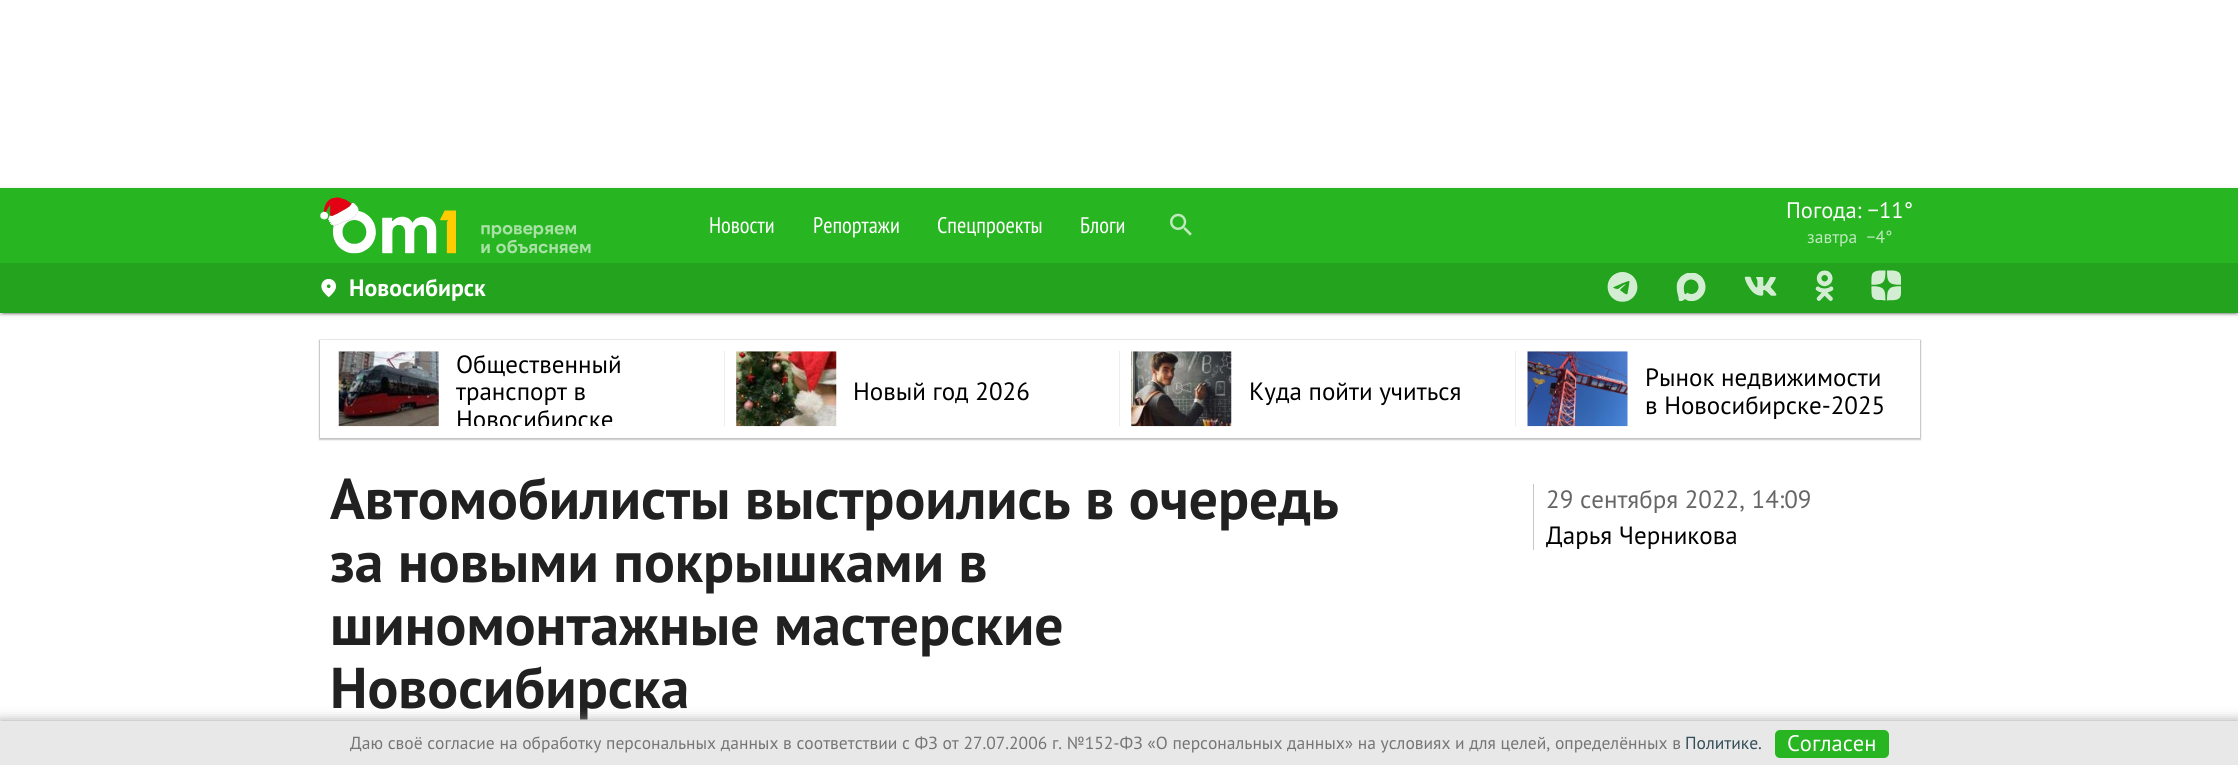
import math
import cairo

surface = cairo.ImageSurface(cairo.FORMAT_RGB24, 2238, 765)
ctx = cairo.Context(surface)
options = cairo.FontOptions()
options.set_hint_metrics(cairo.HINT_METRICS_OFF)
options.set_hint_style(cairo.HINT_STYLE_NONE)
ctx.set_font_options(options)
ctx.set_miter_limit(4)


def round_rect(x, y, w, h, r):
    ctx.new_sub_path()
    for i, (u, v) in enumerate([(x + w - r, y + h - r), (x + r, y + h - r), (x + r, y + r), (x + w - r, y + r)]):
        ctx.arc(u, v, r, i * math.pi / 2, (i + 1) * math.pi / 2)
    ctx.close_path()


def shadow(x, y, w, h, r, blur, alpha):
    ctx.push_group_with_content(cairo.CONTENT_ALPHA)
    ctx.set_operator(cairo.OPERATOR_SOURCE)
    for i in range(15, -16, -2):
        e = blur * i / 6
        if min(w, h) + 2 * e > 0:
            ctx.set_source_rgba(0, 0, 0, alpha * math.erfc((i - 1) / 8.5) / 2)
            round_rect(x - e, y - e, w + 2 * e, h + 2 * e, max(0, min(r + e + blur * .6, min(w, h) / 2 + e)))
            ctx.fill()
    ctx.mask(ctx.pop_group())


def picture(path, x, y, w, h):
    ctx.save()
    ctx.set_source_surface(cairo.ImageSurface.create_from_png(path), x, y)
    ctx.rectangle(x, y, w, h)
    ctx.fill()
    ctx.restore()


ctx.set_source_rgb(1, 1, 1)
ctx.paint()
ctx.set_source_rgb(0, 0, 0)
shadow(3, 194, 2233, 120, 0, 0.5, 0.2)
shadow(0, 189, 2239, 125, 0, 3, 0.12)
shadow(0, 190, 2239, 125, 0, 1, 0.14)
ctx.set_source_rgb(0.153, 0.71, 0.129)
ctx.rectangle(0, 188, 2238, 75)
ctx.fill()
picture("img1.png", 320, 197, 136, 57)
picture("img2.png", 481, 224, 110, 30)
ctx.select_font_face("PT Sans Narrow")
ctx.set_font_size(22.5)
ctx.set_source_rgb(1, 1, 1)
ctx.move_to(709, 233)
ctx.show_text("Новости")
ctx.move_to(813, 233)
ctx.show_text("Репортажи")
ctx.move_to(937, 233)
ctx.show_text("Спецпроекты")
ctx.move_to(1080, 233)
ctx.show_text("Блоги")
picture("img3.png", 1170, 213, 22, 23)
ctx.select_font_face("PT Sans")
ctx.move_to(1786, 218)
ctx.show_text("Погода: −11°")
ctx.set_font_size(17.5)
ctx.set_source_rgb(0.745, 0.914, 0.737)
ctx.move_to(1807, 243)
ctx.show_text("завтра  −4°")
ctx.set_source_rgb(0.137, 0.639, 0.118)
ctx.rectangle(0, 263, 2238, 50)
ctx.fill()
picture("img4.png", 321, 279, 15, 19)
ctx.select_font_face("PT Sans", cairo.FONT_SLANT_NORMAL, cairo.FONT_WEIGHT_BOLD)
ctx.set_font_size(23.75)
ctx.set_source_rgb(1, 1, 1)
ctx.move_to(349, 296)
ctx.show_text("Новосибирск")
picture("img5.png", 1607, 272, 31, 30)
picture("img6.png", 1676, 273, 30, 28)
picture("img7.png", 1744, 276, 33, 20)
picture("img8.png", 1815, 270, 19, 31)
picture("img9.png", 1871, 270, 30, 31)
ctx.set_source_rgb(0, 0, 0)
shadow(320, 340, 1600, 98, 0, 0.5, 0.2)
shadow(319, 340, 1602, 100, 0, 0.5, 0.2)
ctx.set_source_rgb(1, 1, 1)
ctx.rectangle(320, 340, 1600, 98)
ctx.fill()
picture("img10.png", 338, 351, 101, 76)
ctx.select_font_face("PT Sans")
ctx.set_font_size(25)
ctx.set_source_rgb(0, 0, 0)
ctx.move_to(456, 373)
ctx.show_text("Общественный")
ctx.move_to(456, 400)
ctx.show_text("транспорт в")
ctx.save()
ctx.rectangle(328, 351, 396, 75)
ctx.clip()
ctx.move_to(456, 428)
ctx.show_text("Новосибирске")
ctx.restore()
ctx.set_source_rgb(0.929, 0.929, 0.929)
ctx.rectangle(724, 351, 1, 75)
ctx.fill()
picture("img11.png", 736, 351, 101, 76)
ctx.set_source_rgb(0, 0, 0)
ctx.move_to(853, 400)
ctx.show_text("Новый год 2026")
ctx.set_source_rgb(0.929, 0.929, 0.929)
ctx.rectangle(1119, 351, 1, 75)
ctx.fill()
picture("img12.png", 1131, 351, 101, 76)
ctx.set_source_rgb(0, 0, 0)
ctx.move_to(1249, 400)
ctx.show_text("Куда пойти учиться")
ctx.set_source_rgb(0.929, 0.929, 0.929)
ctx.rectangle(1515, 351, 1, 75)
ctx.fill()
picture("img13.png", 1527, 351, 101, 76)
ctx.set_source_rgb(0, 0, 0)
ctx.move_to(1645, 386)
ctx.show_text("Рынок недвижимости")
ctx.move_to(1645, 414)
ctx.show_text("в Новосибирске-2025")
ctx.select_font_face("PT Sans", cairo.FONT_SLANT_NORMAL, cairo.FONT_WEIGHT_BOLD)
ctx.set_font_size(57.5)
ctx.set_source_rgb(0.129, 0.129, 0.129)
ctx.move_to(330, 519)
ctx.show_text("Автомобилисты выстроились в очередь")
ctx.move_to(330, 582)
ctx.show_text("за новыми покрышками в")
ctx.move_to(330, 645)
ctx.show_text("шиномонтажные мастерские")
ctx.move_to(330, 708)
ctx.show_text("Новосибирска")
ctx.set_source_rgb(0.78, 0.78, 0.78)
ctx.rectangle(1533, 484, 1, 66)
ctx.fill()
ctx.select_font_face("PT Sans")
ctx.set_font_size(25)
ctx.set_source_rgb(0.4, 0.4, 0.4)
ctx.move_to(1546, 508)
ctx.show_text("29 сентября 2022, 14:09")
ctx.set_source_rgb(0, 0, 0)
ctx.move_to(1546, 544)
ctx.show_text("Дарья Черникова")
ctx.set_source_rgb(0.635, 0.635, 0.635)
shadow(0, 721, 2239, 44, 0, 6, 1)
ctx.set_source_rgb(0.91, 0.91, 0.91)
ctx.rectangle(0, 721, 2238, 44)
ctx.fill()
ctx.set_font_size(17.5)
ctx.set_source_rgb(0.459, 0.459, 0.459)
ctx.move_to(350, 749)
ctx.show_text("Даю своё согласие на обработку персональных данных в соответствии с ФЗ от 27.07.2006 г. №152-ФЗ «О персональных данных» на условиях и для целей, определённых в")
ctx.set_source_rgb(0.196, 0.306, 0.349)
ctx.move_to(1685, 749)
ctx.show_text("Политике.")
ctx.set_source_rgb(0.153, 0.71, 0.129)
round_rect(1775, 730, 114, 28, 5)
ctx.fill()
ctx.set_font_size(22.5)
ctx.set_source_rgb(1, 1, 1)
ctx.move_to(1787, 751)
ctx.show_text("Согласен")
surface.write_to_png("page.png")
